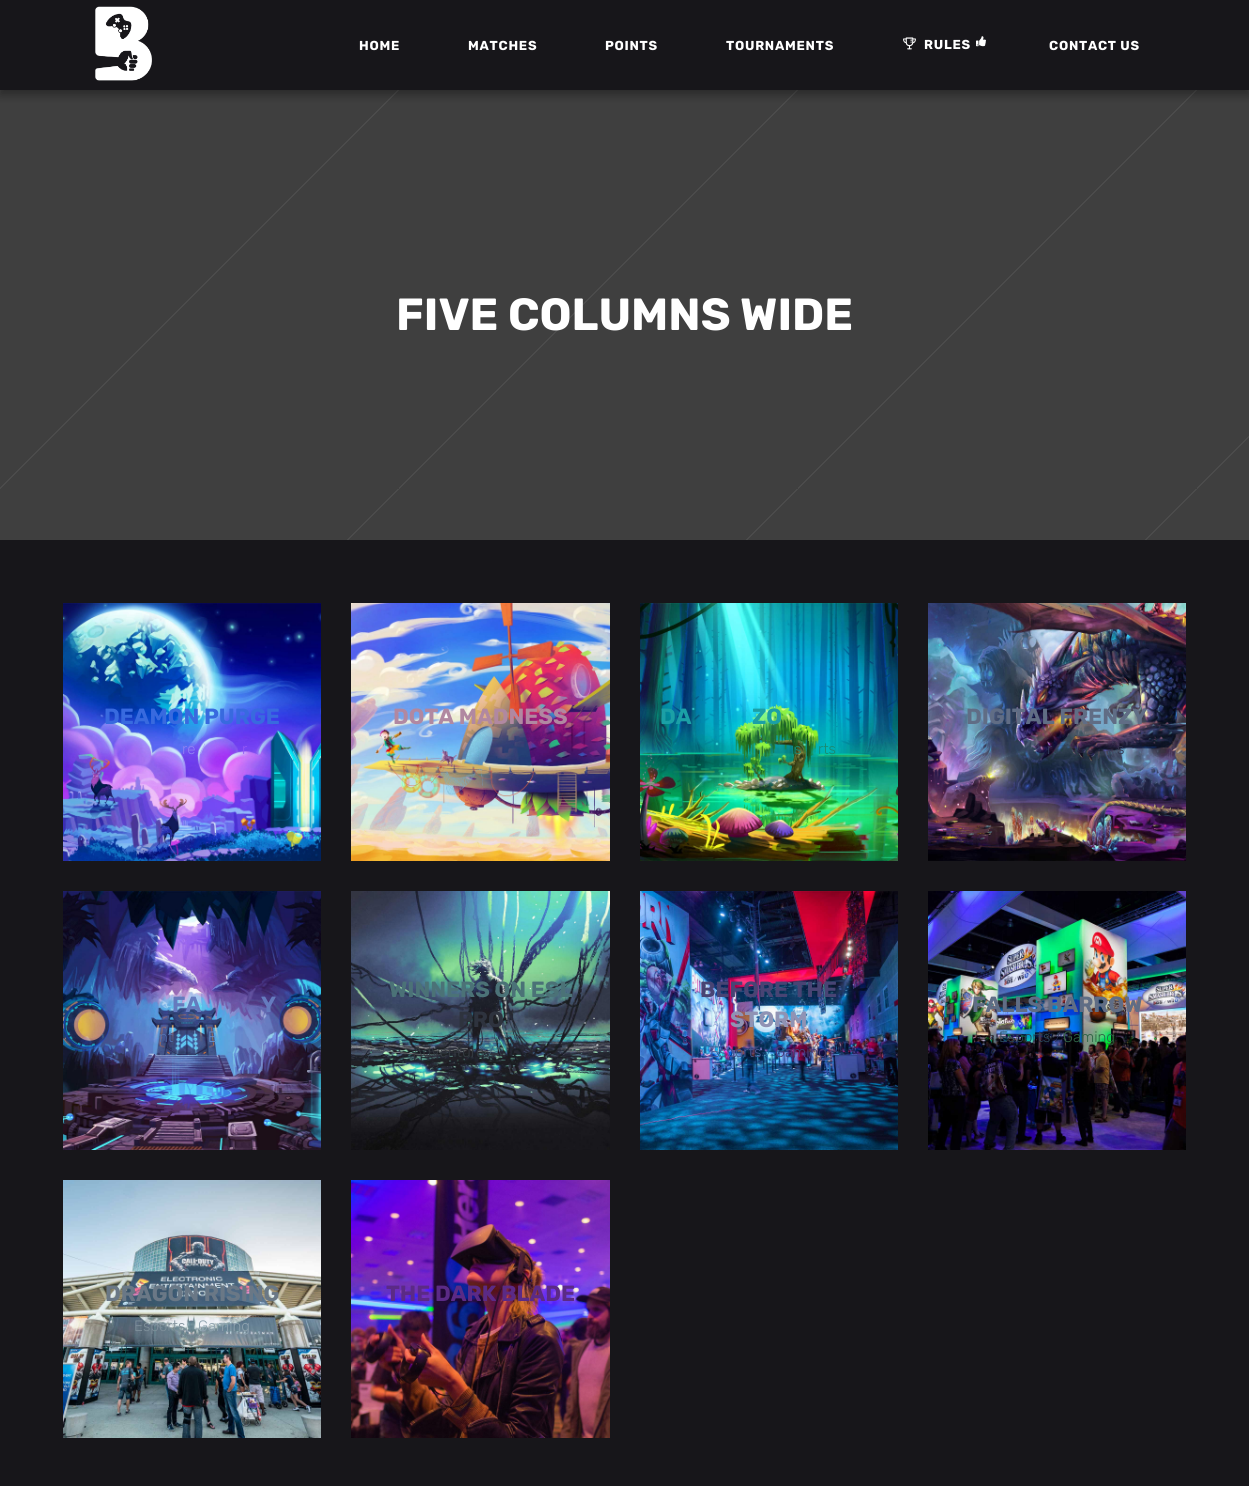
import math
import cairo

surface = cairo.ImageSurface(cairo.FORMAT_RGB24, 1249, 1486)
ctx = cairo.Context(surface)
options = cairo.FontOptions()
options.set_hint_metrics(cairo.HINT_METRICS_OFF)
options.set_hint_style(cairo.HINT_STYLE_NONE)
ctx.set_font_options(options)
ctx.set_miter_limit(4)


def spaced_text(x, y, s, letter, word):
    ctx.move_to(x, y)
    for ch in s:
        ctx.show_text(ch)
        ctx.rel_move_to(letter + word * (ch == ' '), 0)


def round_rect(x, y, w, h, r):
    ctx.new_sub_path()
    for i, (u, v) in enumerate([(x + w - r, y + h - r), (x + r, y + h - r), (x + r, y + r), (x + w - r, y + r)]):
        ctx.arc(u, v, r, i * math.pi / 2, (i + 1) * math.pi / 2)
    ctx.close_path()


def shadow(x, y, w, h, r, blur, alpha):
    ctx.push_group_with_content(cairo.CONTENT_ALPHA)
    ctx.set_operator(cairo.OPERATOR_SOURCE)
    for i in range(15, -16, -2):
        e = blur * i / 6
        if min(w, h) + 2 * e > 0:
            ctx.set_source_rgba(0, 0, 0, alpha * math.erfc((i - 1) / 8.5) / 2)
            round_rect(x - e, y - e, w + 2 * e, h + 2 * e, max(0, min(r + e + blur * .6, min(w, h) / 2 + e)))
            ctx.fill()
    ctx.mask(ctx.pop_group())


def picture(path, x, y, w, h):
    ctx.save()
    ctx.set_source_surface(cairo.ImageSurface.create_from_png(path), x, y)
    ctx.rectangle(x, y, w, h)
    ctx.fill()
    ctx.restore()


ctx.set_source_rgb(0.09, 0.086, 0.102)
ctx.paint()
picture("img4.png", 0, 90, 1249, 450)
ctx.save()
ctx.rectangle(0, 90, 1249, 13)
ctx.clip()
ctx.set_source_rgb(0, 0, 0)
shadow(0, 5, 1249, 90, 0, 5, 0.35)
ctx.restore()
picture("img1.png", 95, 6, 57, 75)
ctx.select_font_face("Rubik", cairo.FONT_SLANT_NORMAL, cairo.FONT_WEIGHT_BOLD)
ctx.set_font_size(13)
ctx.set_source_rgb(1, 1, 1)
spaced_text(359, 50, "HOME", 0.75, 0)
spaced_text(468, 50, "MATCHES", 0.75, 0)
spaced_text(605, 50, "POINTS", 0.75, 0)
spaced_text(726, 50, "TOURNAMENTS", 0.75, 0)
picture("img2.png", 903, 37, 13, 13)
spaced_text(924, 49, "RULES", 0.75, 0)
picture("img3.png", 976, 36, 10, 11)
spaced_text(1049, 50, "CONTACT US", 0.75, 0)
ctx.set_font_size(45)
ctx.move_to(396, 330)
ctx.show_text("FIVE COLUMNS WIDE")
picture("img5.png", 63, 603, 258, 258)
ctx.set_font_size(22)
ctx.set_source_rgb(0.22, 0.416, 0.875)
ctx.move_to(104, 724)
ctx.show_text("DEAMON PURGE")
ctx.select_font_face("Rubik Light")
ctx.set_font_size(15)
ctx.set_source_rgb(0.565, 0.498, 0.957)
ctx.move_to(182, 754)
ctx.show_text("re")
ctx.set_font_size(12)
ctx.set_source_rgb(0.682, 0.682, 0.965)
ctx.move_to(200, 753)
ctx.show_text("/")
ctx.set_font_size(15)
ctx.set_source_rgb(0.58, 0.341, 0.961)
ctx.move_to(242, 754)
ctx.show_text("r")
picture("img6.png", 351, 603, 259, 258)
ctx.select_font_face("Rubik", cairo.FONT_SLANT_NORMAL, cairo.FONT_WEIGHT_BOLD)
ctx.set_font_size(22)
ctx.set_source_rgb(0.694, 0.533, 0.631)
ctx.move_to(393, 724)
ctx.show_text("DOTA MADNESS")
picture("img7.png", 640, 603, 258, 258)
ctx.set_source_rgb(0.106, 0.627, 0.651)
ctx.move_to(660, 724)
ctx.show_text("DA")
ctx.move_to(752, 724)
ctx.show_text("ZO")
ctx.select_font_face("Rubik Light")
ctx.set_font_size(15)
ctx.set_source_rgb(0.102, 0.537, 0.443)
ctx.move_to(794, 754)
ctx.show_text("s")
ctx.move_to(818, 754)
ctx.show_text("rts")
picture("img8.png", 928, 603, 258, 258)
ctx.select_font_face("Rubik", cairo.FONT_SLANT_NORMAL, cairo.FONT_WEIGHT_BOLD)
ctx.set_font_size(22)
ctx.set_source_rgb(0.376, 0.427, 0.522)
ctx.move_to(966, 724)
ctx.show_text("DIGITAL FRENZY")
ctx.select_font_face("Rubik Light")
ctx.set_font_size(15)
ctx.set_source_rgb(0.212, 0.247, 0.369)
ctx.move_to(1047, 754)
ctx.show_text("r")
ctx.set_source_rgb(0.2, 0.204, 0.302)
ctx.move_to(1117, 754)
ctx.show_text("s")
picture("img9.png", 63, 891, 258, 259)
ctx.select_font_face("Rubik", cairo.FONT_SLANT_NORMAL, cairo.FONT_WEIGHT_BOLD)
ctx.set_font_size(22)
ctx.set_source_rgb(0.396, 0.482, 0.745)
ctx.move_to(172, 1012)
ctx.show_text("FA")
ctx.move_to(261, 1012)
ctx.show_text("Y")
ctx.select_font_face("Rubik Light")
ctx.set_font_size(15)
ctx.set_source_rgb(0.322, 0.451, 0.694)
ctx.move_to(159, 1042)
ctx.show_text("nt")
ctx.set_source_rgb(0.384, 0.565, 0.796)
ctx.move_to(208, 1042)
ctx.show_text("E")
picture("img10.png", 351, 891, 259, 259)
ctx.select_font_face("Rubik", cairo.FONT_SLANT_NORMAL, cairo.FONT_WEIGHT_BOLD)
ctx.set_font_size(22)
ctx.set_source_rgb(0.294, 0.447, 0.467)
ctx.move_to(389, 997)
ctx.show_text("WINNERS ON ESL")
ctx.set_source_rgb(0.18, 0.2, 0.243)
ctx.move_to(458, 1027)
ctx.show_text("PRO")
ctx.select_font_face("Rubik Light")
ctx.set_font_size(15)
ctx.set_source_rgb(0.204, 0.231, 0.255)
ctx.move_to(413, 1057)
ctx.show_text("Adventure")
ctx.set_font_size(12)
ctx.set_source_rgb(0.255, 0.412, 0.463)
ctx.move_to(488, 1056)
ctx.show_text("/")
picture("img11.png", 640, 891, 258, 259)
ctx.select_font_face("Rubik", cairo.FONT_SLANT_NORMAL, cairo.FONT_WEIGHT_BOLD)
ctx.set_font_size(22)
ctx.set_source_rgb(0.282, 0.267, 0.455)
ctx.move_to(700, 997)
ctx.show_text("BEFORE THE")
ctx.set_source_rgb(0.565, 0.576, 0.706)
ctx.move_to(730, 1027)
ctx.show_text("STORM")
ctx.select_font_face("Rubik Light")
ctx.set_font_size(15)
ctx.set_source_rgb(0.278, 0.349, 0.573)
ctx.move_to(710, 1057)
ctx.show_text("Esports")
ctx.set_font_size(12)
ctx.set_source_rgb(0.169, 0.467, 0.663)
ctx.move_to(766, 1056)
ctx.show_text("/")
ctx.set_font_size(15)
ctx.set_source_rgb(0.275, 0.243, 0.463)
ctx.move_to(775, 1057)
ctx.show_text("Gaming")
picture("img12.png", 928, 891, 258, 259)
ctx.select_font_face("Rubik", cairo.FONT_SLANT_NORMAL, cairo.FONT_WEIGHT_BOLD)
ctx.set_font_size(22)
ctx.set_source_rgb(0.376, 0.427, 0.522)
ctx.move_to(972, 1012)
ctx.show_text("FALLS BARROW")
ctx.select_font_face("Rubik Light")
ctx.set_font_size(15)
ctx.set_source_rgb(0.157, 0.271, 0.349)
ctx.move_to(999, 1042)
ctx.show_text("Esports")
ctx.set_font_size(12)
ctx.set_source_rgb(0.157, 0.188, 0.31)
ctx.move_to(1055, 1041)
ctx.show_text("/")
ctx.set_font_size(15)
ctx.set_source_rgb(0.184, 0.392, 0.271)
ctx.move_to(1063, 1042)
ctx.show_text("Gaming")
picture("img13.png", 63, 1180, 258, 258)
ctx.select_font_face("Rubik", cairo.FONT_SLANT_NORMAL, cairo.FONT_WEIGHT_BOLD)
ctx.set_font_size(22)
ctx.set_source_rgb(0.416, 0.471, 0.525)
ctx.move_to(105, 1301)
ctx.show_text("DRAGON RISING")
ctx.select_font_face("Rubik Light")
ctx.set_font_size(15)
ctx.set_source_rgb(0.494, 0.561, 0.604)
ctx.move_to(134, 1331)
ctx.show_text("Esports")
ctx.set_source_rgb(0.557, 0.635, 0.682)
ctx.move_to(198, 1331)
ctx.show_text("Gaming")
picture("img14.png", 351, 1180, 259, 258)
ctx.select_font_face("Rubik", cairo.FONT_SLANT_NORMAL, cairo.FONT_WEIGHT_BOLD)
ctx.set_font_size(22)
ctx.set_source_rgb(0.357, 0.165, 0.525)
ctx.move_to(386, 1301)
ctx.show_text("THE DARK BLADE")
surface.write_to_png("page.png")
